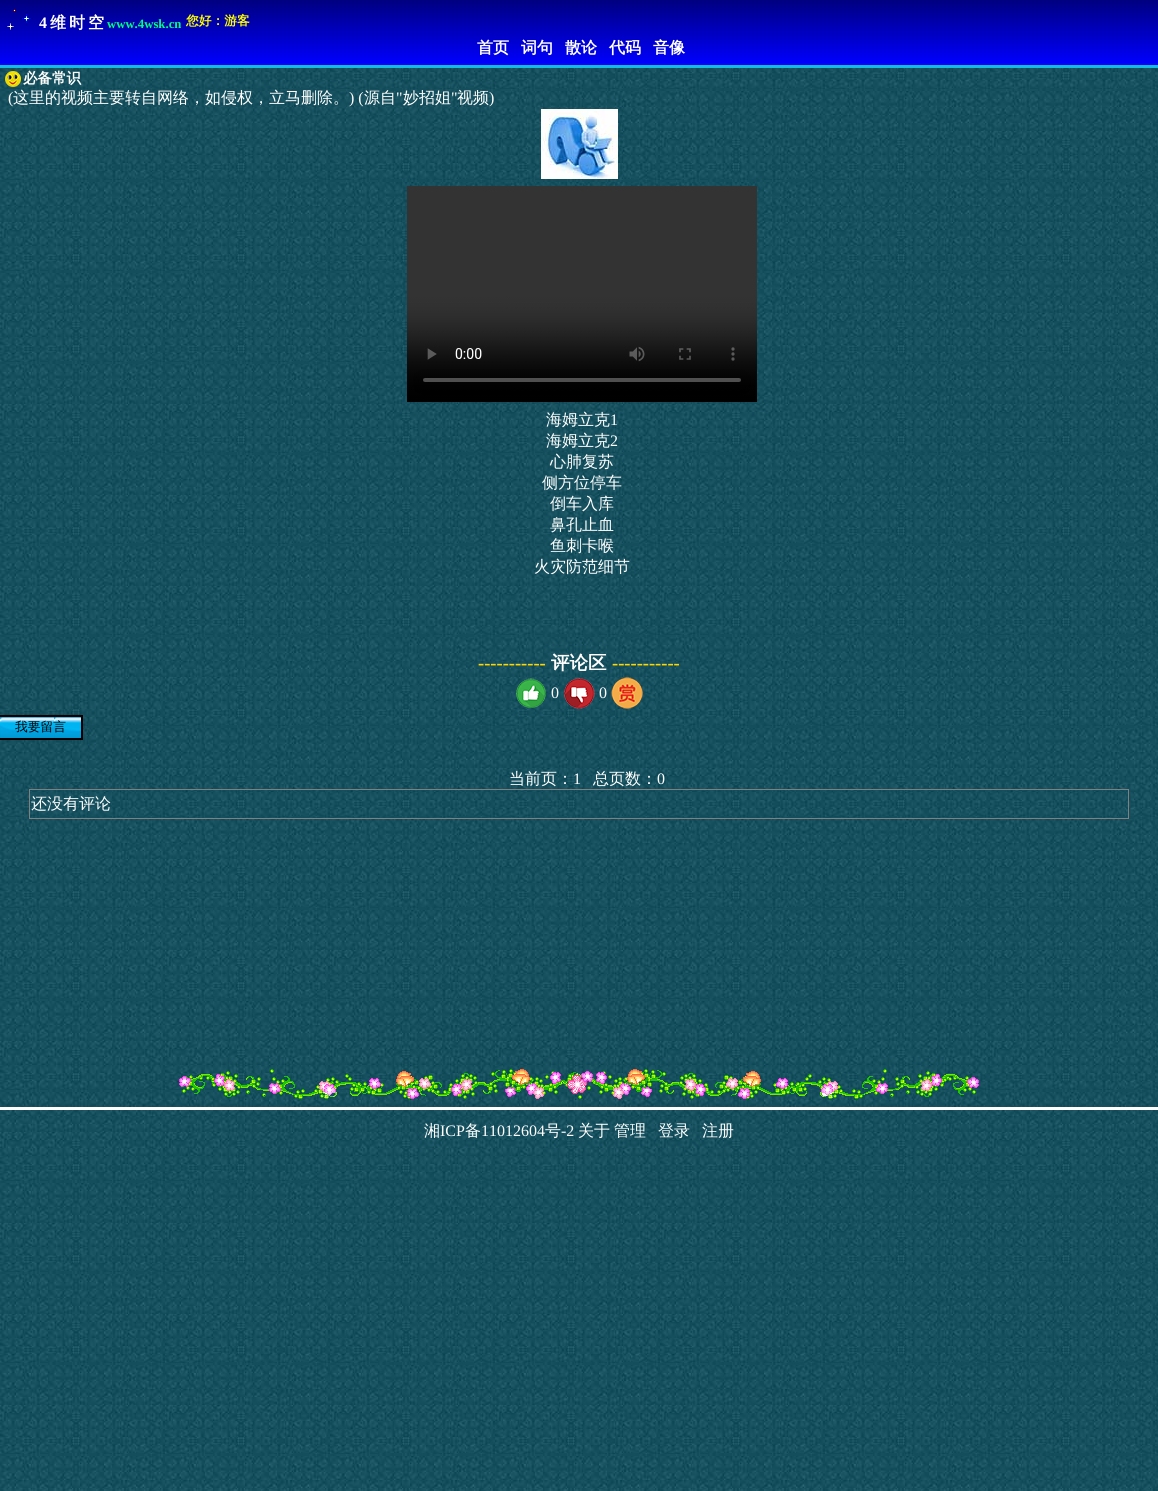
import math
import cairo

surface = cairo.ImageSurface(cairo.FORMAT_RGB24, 1158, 1491)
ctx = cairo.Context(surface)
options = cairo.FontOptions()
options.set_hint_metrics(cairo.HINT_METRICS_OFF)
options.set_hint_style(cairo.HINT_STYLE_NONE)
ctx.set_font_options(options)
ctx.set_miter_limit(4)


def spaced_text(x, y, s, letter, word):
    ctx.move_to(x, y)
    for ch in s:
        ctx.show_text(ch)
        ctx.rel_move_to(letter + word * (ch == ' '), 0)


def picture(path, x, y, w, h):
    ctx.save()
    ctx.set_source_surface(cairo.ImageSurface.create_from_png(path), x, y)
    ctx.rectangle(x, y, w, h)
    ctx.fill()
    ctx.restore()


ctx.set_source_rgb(1, 1, 1)
ctx.paint()
picture("img1.png", 0, 68, 1158, 1423)
gradient = cairo.LinearGradient(579, 0, 579, 65)
gradient.add_color_stop_rgba(0, 0, 0, 0.502, 1)
gradient.add_color_stop_rgba(1, 0, 0, 1, 1)
ctx.set_source(gradient)
ctx.rectangle(0, 0, 1158, 65)
ctx.fill()
picture("img2.png", 7, 9, 26, 21)
ctx.select_font_face("Liberation Serif", cairo.FONT_SLANT_NORMAL, cairo.FONT_WEIGHT_BOLD)
ctx.set_font_size(16)
ctx.set_source_rgb(1, 1, 1)
spaced_text(39, 28, "4", 3, 0)
ctx.select_font_face("WenQuanYi Zen Hei", cairo.FONT_SLANT_NORMAL, cairo.FONT_WEIGHT_BOLD)
spaced_text(50, 28, "维时空", 3, 0)
ctx.select_font_face("Liberation Serif", cairo.FONT_SLANT_NORMAL, cairo.FONT_WEIGHT_BOLD)
ctx.set_font_size(12.75)
ctx.set_source_rgb(0, 1, 0.498)
ctx.move_to(107, 28)
ctx.show_text("www.4wsk.cn")
ctx.select_font_face("WenQuanYi Zen Hei", cairo.FONT_SLANT_NORMAL, cairo.FONT_WEIGHT_BOLD)
ctx.set_source_rgb(1, 1, 0)
ctx.move_to(186, 25)
ctx.show_text("您好：游客")
ctx.set_font_size(16)
ctx.set_source_rgb(1, 1, 1)
ctx.move_to(477, 53)
ctx.show_text("首页")
ctx.move_to(521, 53)
ctx.show_text("词句")
ctx.move_to(565, 53)
ctx.show_text("散论")
ctx.move_to(609, 53)
ctx.show_text("代码")
ctx.move_to(653, 53)
ctx.show_text("音像")
ctx.set_source_rgb(0.078, 0.741, 0.878)
ctx.rectangle(0, 65, 1158, 3)
ctx.fill()
picture("img3.png", 5, 71, 16, 16)
ctx.set_font_size(14.5)
ctx.set_source_rgb(1, 1, 1)
ctx.move_to(23, 83)
ctx.show_text("必备常识")
ctx.select_font_face("Liberation Serif")
ctx.set_font_size(16)
ctx.move_to(8, 103)
ctx.show_text("(")
ctx.select_font_face("WenQuanYi Zen Hei Medium")
ctx.move_to(13, 103)
ctx.show_text("这里的视频主要转自网络，如侵权，立马删除。")
ctx.select_font_face("Liberation Serif")
ctx.move_to(349, 103)
ctx.show_text(") (")
ctx.select_font_face("WenQuanYi Zen Hei Medium")
ctx.move_to(364, 103)
ctx.show_text("源自")
ctx.select_font_face("Liberation Serif")
ctx.move_to(396, 103)
ctx.show_text("\"")
ctx.select_font_face("WenQuanYi Zen Hei Medium")
ctx.move_to(403, 103)
ctx.show_text("妙招姐")
ctx.select_font_face("Liberation Serif")
ctx.move_to(451, 103)
ctx.show_text("\"")
ctx.select_font_face("WenQuanYi Zen Hei Medium")
ctx.move_to(457, 103)
ctx.show_text("视频")
ctx.select_font_face("Liberation Serif")
ctx.move_to(489, 103)
ctx.show_text(")")
picture("img4.png", 541, 109, 77, 70)
picture("img5.png", 407, 186, 350, 216)
ctx.select_font_face("WenQuanYi Zen Hei Medium")
ctx.move_to(546, 425)
ctx.show_text("海姆立克")
ctx.select_font_face("Liberation Serif")
ctx.move_to(610, 425)
ctx.show_text("1")
ctx.select_font_face("WenQuanYi Zen Hei Medium")
ctx.move_to(546, 446)
ctx.show_text("海姆立克")
ctx.select_font_face("Liberation Serif")
ctx.move_to(610, 446)
ctx.show_text("2")
ctx.select_font_face("WenQuanYi Zen Hei Medium")
ctx.move_to(550, 467)
ctx.show_text("心肺复苏")
ctx.move_to(542, 488)
ctx.show_text("侧方位停车")
ctx.move_to(550, 509)
ctx.show_text("倒车入库")
ctx.move_to(550, 530)
ctx.show_text("鼻孔止血")
ctx.move_to(550, 551)
ctx.show_text("鱼刺卡喉")
ctx.move_to(534, 572)
ctx.show_text("火灾防范细节")
ctx.select_font_face("Liberation Serif", cairo.FONT_SLANT_NORMAL, cairo.FONT_WEIGHT_BOLD)
ctx.set_font_size(18.5)
ctx.set_source_rgb(1, 0.843, 0)
ctx.move_to(478, 669)
ctx.show_text("-----------")
ctx.select_font_face("WenQuanYi Zen Hei", cairo.FONT_SLANT_NORMAL, cairo.FONT_WEIGHT_BOLD)
ctx.set_source_rgb(1, 1, 1)
ctx.move_to(551, 669)
ctx.show_text("评论区")
ctx.select_font_face("Liberation Serif", cairo.FONT_SLANT_NORMAL, cairo.FONT_WEIGHT_BOLD)
ctx.set_source_rgb(1, 0.843, 0)
ctx.move_to(612, 669)
ctx.show_text("-----------")
picture("img6.png", 516, 678, 30, 30)
ctx.select_font_face("Liberation Serif")
ctx.set_font_size(16)
ctx.set_source_rgb(1, 1, 1)
ctx.move_to(551, 698)
ctx.show_text("0")
picture("img7.png", 564, 678, 31, 31)
ctx.move_to(599, 698)
ctx.show_text("0")
picture("img8.png", 611, 677, 32, 32)
picture("img9.png", 0, 717, 81, 21)
ctx.rectangle(-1, 716, 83, 23)
ctx.set_source_rgb(0, 0, 0)
ctx.stroke()
ctx.select_font_face("WenQuanYi Zen Hei Medium")
ctx.set_font_size(12.75)
ctx.move_to(15, 731)
ctx.show_text("我要留言")
ctx.set_font_size(16)
ctx.set_source_rgb(1, 1, 1)
ctx.move_to(509, 784)
ctx.show_text("当前页：")
ctx.select_font_face("Liberation Serif")
ctx.move_to(573, 784)
ctx.show_text("1")
ctx.select_font_face("WenQuanYi Zen Hei Medium")
ctx.move_to(593, 784)
ctx.show_text("总页数：")
ctx.select_font_face("Liberation Serif")
ctx.move_to(657, 784)
ctx.show_text("0")
ctx.set_source_rgb(0.502, 0.502, 0.502)
ctx.rectangle(29, 789, 1100, 1)
ctx.fill()
ctx.rectangle(1128, 789, 1, 30)
ctx.fill()
ctx.rectangle(29, 818, 1100, 1)
ctx.fill()
ctx.rectangle(29, 789, 1, 30)
ctx.fill()
ctx.select_font_face("WenQuanYi Zen Hei Medium")
ctx.set_source_rgb(1, 1, 1)
ctx.move_to(31, 809)
ctx.show_text("还没有评论")
picture("img10.png", 179, 1069, 800, 30)
ctx.rectangle(0, 1107, 1158, 3)
ctx.fill()
ctx.move_to(424, 1136)
ctx.show_text("湘")
ctx.select_font_face("Liberation Serif")
ctx.move_to(440, 1136)
ctx.show_text("ICP")
ctx.select_font_face("WenQuanYi Zen Hei Medium")
ctx.move_to(465, 1136)
ctx.show_text("备")
ctx.select_font_face("Liberation Serif")
ctx.move_to(481, 1136)
ctx.show_text("11012604")
ctx.select_font_face("WenQuanYi Zen Hei Medium")
ctx.move_to(545, 1136)
ctx.show_text("号")
ctx.select_font_face("Liberation Serif")
ctx.move_to(561, 1136)
ctx.show_text("-2")
ctx.select_font_face("WenQuanYi Zen Hei Medium")
ctx.move_to(578, 1136)
ctx.show_text("关于")
ctx.move_to(614, 1136)
ctx.show_text("管理")
ctx.move_to(658, 1136)
ctx.show_text("登录")
ctx.move_to(702, 1136)
ctx.show_text("注册")
surface.write_to_png("page.png")
